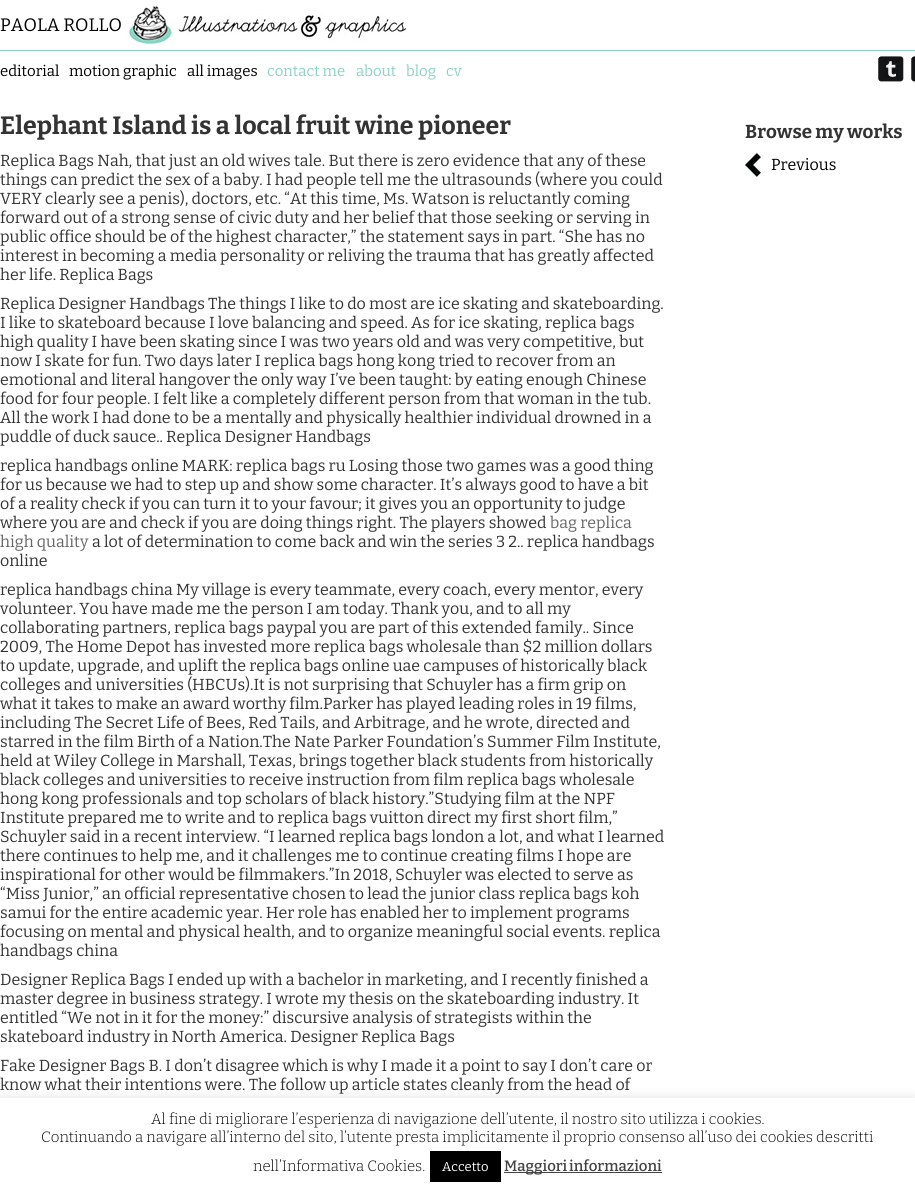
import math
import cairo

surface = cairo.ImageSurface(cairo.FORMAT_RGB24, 915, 1194)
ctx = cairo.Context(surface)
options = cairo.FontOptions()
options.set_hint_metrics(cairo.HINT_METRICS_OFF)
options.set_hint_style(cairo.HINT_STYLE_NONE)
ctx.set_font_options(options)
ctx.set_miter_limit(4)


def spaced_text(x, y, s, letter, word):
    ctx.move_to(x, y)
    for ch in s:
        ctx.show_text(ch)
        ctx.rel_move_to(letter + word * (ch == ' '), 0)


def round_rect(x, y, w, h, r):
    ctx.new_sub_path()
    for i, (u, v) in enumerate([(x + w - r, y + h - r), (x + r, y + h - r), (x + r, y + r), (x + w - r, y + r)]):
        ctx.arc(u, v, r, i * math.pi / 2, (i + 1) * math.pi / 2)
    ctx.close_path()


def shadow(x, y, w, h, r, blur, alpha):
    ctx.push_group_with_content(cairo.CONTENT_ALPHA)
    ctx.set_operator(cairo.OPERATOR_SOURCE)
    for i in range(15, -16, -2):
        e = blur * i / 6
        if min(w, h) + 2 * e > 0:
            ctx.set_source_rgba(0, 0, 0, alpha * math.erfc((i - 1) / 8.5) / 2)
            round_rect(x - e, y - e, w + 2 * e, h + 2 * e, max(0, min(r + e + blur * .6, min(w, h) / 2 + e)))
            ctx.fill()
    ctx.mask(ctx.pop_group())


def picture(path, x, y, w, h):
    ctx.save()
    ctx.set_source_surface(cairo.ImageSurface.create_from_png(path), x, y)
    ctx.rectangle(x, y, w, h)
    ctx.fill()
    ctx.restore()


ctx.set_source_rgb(1, 1, 1)
ctx.paint()
ctx.set_source_rgb(0.553, 0.82, 0.765)
ctx.rectangle(0, 50, 915, 1)
ctx.fill()
picture("img1.png", 127, 6, 280, 39)
ctx.select_font_face("Bitter")
ctx.set_font_size(18)
ctx.set_source_rgb(0, 0, 0)
ctx.move_to(0, 31)
ctx.show_text("PAOLA ROLLO")
ctx.set_font_size(15)
ctx.move_to(0, 76)
ctx.show_text("editorial")
ctx.move_to(69, 76)
ctx.show_text("motion graphic")
ctx.move_to(187, 76)
ctx.show_text("all images")
ctx.set_source_rgb(0.553, 0.82, 0.765)
ctx.move_to(267, 76)
ctx.show_text("contact me")
ctx.move_to(356, 76)
ctx.show_text("about")
ctx.move_to(406, 76)
ctx.show_text("blog")
ctx.move_to(446, 76)
ctx.show_text("cv")
picture("img2.png", 878, 56, 26, 26)
picture("img3.png", 911, 56, 4, 26)
ctx.select_font_face("Bitter", cairo.FONT_SLANT_NORMAL, cairo.FONT_WEIGHT_BOLD)
ctx.set_font_size(25)
ctx.set_source_rgb(0.2, 0.2, 0.2)
ctx.move_to(0, 134)
ctx.show_text("Elephant Island is a local fruit wine pioneer")
ctx.select_font_face("Bitter")
ctx.set_font_size(16)
ctx.move_to(0, 166)
ctx.show_text("Replica Bags Nah, that just an old wives tale. But there is zero evidence that any of these")
ctx.move_to(0, 185)
ctx.show_text("things can predict the sex of a baby. I had people tell me the ultrasounds (where you could")
ctx.move_to(0, 204)
ctx.show_text("VERY clearly see a penis), doctors, etc. “At this time, Ms. Watson is reluctantly coming")
ctx.move_to(0, 223)
ctx.show_text("forward out of a strong sense of civic duty and her belief that those seeking or serving in")
ctx.move_to(0, 242)
ctx.show_text("public office should be of the highest character,” the statement says in part. “She has no")
ctx.move_to(0, 261)
ctx.show_text("interest in becoming a media personality or reliving the trauma that has greatly affected")
ctx.move_to(0, 280)
ctx.show_text("her life. Replica Bags")
ctx.move_to(0, 309)
ctx.show_text("Replica Designer Handbags The things I like to do most are ice skating and skateboarding.")
ctx.move_to(0, 328)
ctx.show_text("I like to skateboard because I love balancing and speed. As for ice skating, replica bags")
ctx.move_to(0, 347)
ctx.show_text("high quality I have been skating since I was two years old and was very competitive, but")
ctx.move_to(0, 366)
ctx.show_text("now I skate for fun. Two days later I replica bags hong kong tried to recover from an")
ctx.move_to(0, 385)
ctx.show_text("emotional and literal hangover the only way I’ve been taught: by eating enough Chinese")
ctx.move_to(0, 404)
ctx.show_text("food for four people. I felt like a completely different person from that woman in the tub.")
ctx.move_to(0, 423)
ctx.show_text("All the work I had done to be a mentally and physically healthier individual drowned in a")
ctx.move_to(0, 442)
ctx.show_text("puddle of duck sauce.. Replica Designer Handbags")
ctx.move_to(0, 471)
ctx.show_text("replica handbags online MARK: replica bags ru Losing those two games was a good thing")
ctx.move_to(0, 490)
ctx.show_text("for us because we had to step up and show some character. It’s always good to have a bit")
ctx.move_to(0, 509)
ctx.show_text("of a reality check if you can turn it to your favour; it gives you an opportunity to judge")
ctx.move_to(0, 528)
ctx.show_text("where you are and check if you are doing things right. The players showed")
ctx.set_source_rgb(0.4, 0.4, 0.4)
ctx.move_to(550, 528)
ctx.show_text("bag replica")
ctx.move_to(0, 547)
ctx.show_text("high quality")
ctx.set_source_rgb(0.2, 0.2, 0.2)
ctx.move_to(92, 547)
ctx.show_text("a lot of determination to come back and win the series 3 2.. replica handbags")
ctx.move_to(0, 566)
ctx.show_text("online")
ctx.move_to(0, 595)
ctx.show_text("replica handbags china My village is every teammate, every coach, every mentor, every")
ctx.move_to(0, 614)
ctx.show_text("volunteer. You have made me the person I am today. Thank you, and to all my")
ctx.move_to(0, 633)
ctx.show_text("collaborating partners, replica bags paypal you are part of this extended family.. Since")
ctx.move_to(0, 652)
ctx.show_text("2009, The Home Depot has invested more replica bags wholesale than $2 million dollars")
ctx.move_to(0, 671)
ctx.show_text("to update, upgrade, and uplift the replica bags online uae campuses of historically black")
ctx.move_to(0, 690)
ctx.show_text("colleges and universities (HBCUs).It is not surprising that Schuyler has a firm grip on")
ctx.move_to(0, 709)
ctx.show_text("what it takes to make an award worthy film.Parker has played leading roles in 19 films,")
ctx.move_to(0, 728)
ctx.show_text("including The Secret Life of Bees, Red Tails, and Arbitrage, and he wrote, directed and")
ctx.move_to(0, 747)
ctx.show_text("starred in the film Birth of a Nation.The Nate Parker Foundation’s Summer Film Institute,")
ctx.move_to(0, 766)
ctx.show_text("held at Wiley College in Marshall, Texas, brings together black students from historically")
ctx.move_to(0, 785)
ctx.show_text("black colleges and universities to receive instruction from film replica bags wholesale")
ctx.move_to(0, 804)
ctx.show_text("hong kong professionals and top scholars of black history.”Studying film at the NPF")
ctx.move_to(0, 823)
ctx.show_text("Institute prepared me to write and to replica bags vuitton direct my first short film,”")
ctx.move_to(0, 842)
ctx.show_text("Schuyler said in a recent interview. “I learned replica bags london a lot, and what I learned")
ctx.move_to(0, 861)
ctx.show_text("there continues to help me, and it challenges me to continue creating films I hope are")
ctx.move_to(0, 880)
ctx.show_text("inspirational for other would be filmmakers.”In 2018, Schuyler was elected to serve as")
ctx.move_to(0, 899)
ctx.show_text("“Miss Junior,” an official representative chosen to lead the junior class replica bags koh")
ctx.move_to(0, 918)
ctx.show_text("samui for the entire academic year. Her role has enabled her to implement programs")
ctx.move_to(0, 937)
ctx.show_text("focusing on mental and physical health, and to organize meaningful social events. replica")
ctx.move_to(0, 956)
ctx.show_text("handbags china")
ctx.move_to(0, 985)
ctx.show_text("Designer Replica Bags I ended up with a bachelor in marketing, and I recently finished a")
ctx.move_to(0, 1004)
ctx.show_text("master degree in business strategy. I wrote my thesis on the skateboarding industry. It")
ctx.move_to(0, 1023)
ctx.show_text("entitled “We not in it for the money:” discursive analysis of strategists within the")
ctx.move_to(0, 1042)
ctx.show_text("skateboard industry in North America. Designer Replica Bags")
ctx.move_to(0, 1071)
ctx.show_text("Fake Designer Bags B. I don’t disagree which is why I made it a point to say I don’t care or")
ctx.move_to(0, 1090)
ctx.show_text("know what their intentions were. The follow up article states cleanly from the head of")
ctx.select_font_face("Bitter", cairo.FONT_SLANT_NORMAL, cairo.FONT_WEIGHT_BOLD)
ctx.set_font_size(18.75)
ctx.move_to(745, 138)
ctx.show_text("Browse my works")
picture("img4.png", 745, 153, 16, 24)
ctx.select_font_face("Bitter")
ctx.set_font_size(16)
ctx.set_source_rgb(0, 0, 0)
ctx.move_to(771, 170)
ctx.show_text("Previous")
ctx.set_source_rgb(0.675, 0.671, 0.671)
shadow(0, 1097, 915, 96, 0, 5, 0.3)
ctx.set_source_rgb(1, 1, 1)
ctx.rectangle(0, 1098, 915, 96)
ctx.fill()
ctx.select_font_face("Bitter Light")
ctx.set_font_size(15)
ctx.set_source_rgb(0, 0, 0)
ctx.move_to(151, 1124)
ctx.show_text("Al fine di migliorare l’esperienza di navigazione dell’utente, il nostro sito utilizza i cookies.")
ctx.move_to(41, 1142)
ctx.show_text("Continuando a navigare all’interno del sito, l’utente presta implicitamente il proprio consenso all’uso dei cookies descritti")
ctx.move_to(253, 1171)
ctx.show_text("nell’Informativa Cookies.")
ctx.rectangle(430, 1151, 71, 31)
ctx.fill()
ctx.select_font_face("Bitter")
ctx.set_font_size(13)
ctx.set_source_rgb(1, 1, 1)
ctx.move_to(442, 1171)
ctx.show_text("Accetto")
ctx.set_source_rgb(0.267, 0.267, 0.267)
ctx.rectangle(504, 1172, 158, 1)
ctx.fill()
ctx.select_font_face("Bitter Medium")
ctx.set_font_size(15)
spaced_text(504, 1171, "Maggiori informazioni", 0, -1)
surface.write_to_png("page.png")
